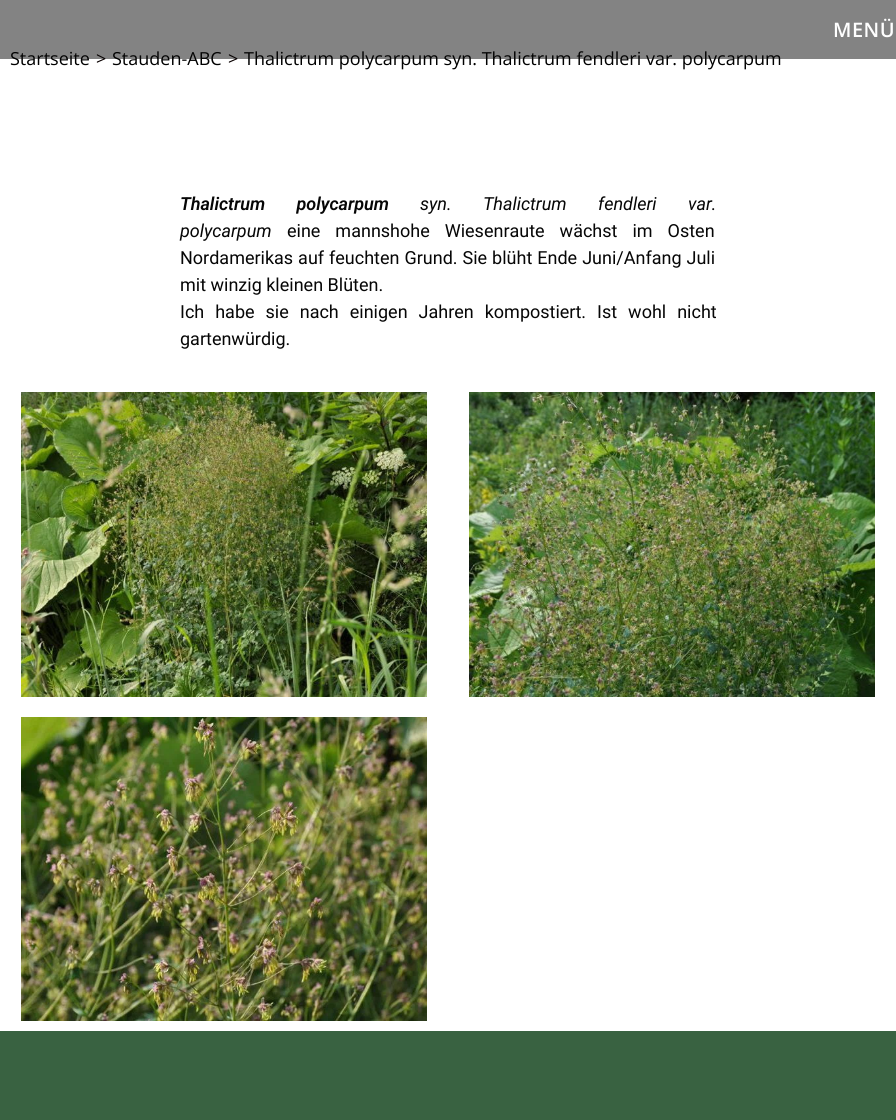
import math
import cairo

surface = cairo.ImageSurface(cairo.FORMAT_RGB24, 896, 1120)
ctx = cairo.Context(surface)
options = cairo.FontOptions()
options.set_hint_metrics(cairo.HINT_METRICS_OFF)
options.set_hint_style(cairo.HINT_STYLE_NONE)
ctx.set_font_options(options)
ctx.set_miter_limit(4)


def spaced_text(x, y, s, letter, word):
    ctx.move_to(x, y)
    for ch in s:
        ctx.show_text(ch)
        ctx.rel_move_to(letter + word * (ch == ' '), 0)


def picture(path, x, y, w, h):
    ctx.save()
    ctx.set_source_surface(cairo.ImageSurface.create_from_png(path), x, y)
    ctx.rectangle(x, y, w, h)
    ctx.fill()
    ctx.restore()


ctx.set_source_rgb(1, 1, 1)
ctx.paint()
ctx.select_font_face("Open Sans")
ctx.set_font_size(18)
ctx.set_source_rgb(0, 0, 0)
ctx.move_to(10, 65)
ctx.show_text("Startseite")
ctx.set_source_rgb(0.039, 0, 0)
ctx.move_to(96, 65)
ctx.show_text(">")
ctx.set_source_rgb(0, 0, 0)
ctx.move_to(112, 65)
ctx.show_text("Stauden-ABC")
ctx.set_source_rgb(0.039, 0, 0)
ctx.move_to(228, 65)
ctx.show_text(">")
ctx.set_source_rgb(0, 0, 0)
ctx.move_to(244, 65)
ctx.show_text("Thalictrum polycarpum syn. Thalictrum fendleri var. polycarpum")
ctx.set_source_rgba(0.039, 0.039, 0.039, 0.5)
ctx.rectangle(0, 0, 896, 59)
ctx.fill()
ctx.select_font_face("Open Sans SemiBold")
ctx.set_font_size(20)
ctx.set_source_rgb(1, 1, 1)
spaced_text(833, 37, "MENÜ", 0.5, 0)
ctx.select_font_face("Roboto SemiBold", cairo.FONT_SLANT_ITALIC)
ctx.set_font_size(18)
ctx.set_source_rgb(0.027, 0.027, 0.027)
spaced_text(180, 210, "Thalictrum polycarpum", 0, 27)
ctx.select_font_face("Roboto", cairo.FONT_SLANT_ITALIC)
spaced_text(420, 210, "syn. Thalictrum fendleri var.", 0, 27)
ctx.move_to(180, 237)
ctx.show_text("polycarpum")
ctx.select_font_face("Roboto")
spaced_text(287, 237, "eine mannshohe Wiesenraute wächst im Osten", 0, 10.5)
spaced_text(180, 264, "Nordamerikas auf feuchten Grund. Sie blüht Ende Juni/Anfang Juli", 0, 0.5)
ctx.move_to(180, 291)
ctx.show_text("mit winzig kleinen Blüten.")
spaced_text(180, 318, "Ich habe sie nach einigen Jahren kompostiert. Ist wohl nicht", 0, 6.5)
ctx.move_to(180, 345)
ctx.show_text("gartenwürdig.")
picture("img1.png", 21, 392, 406, 305)
picture("img2.png", 469, 392, 406, 305)
picture("img3.png", 21, 717, 406, 304)
ctx.set_source_rgb(0.224, 0.384, 0.255)
ctx.rectangle(0, 1031, 896, 89)
ctx.fill()
surface.write_to_png("page.png")
